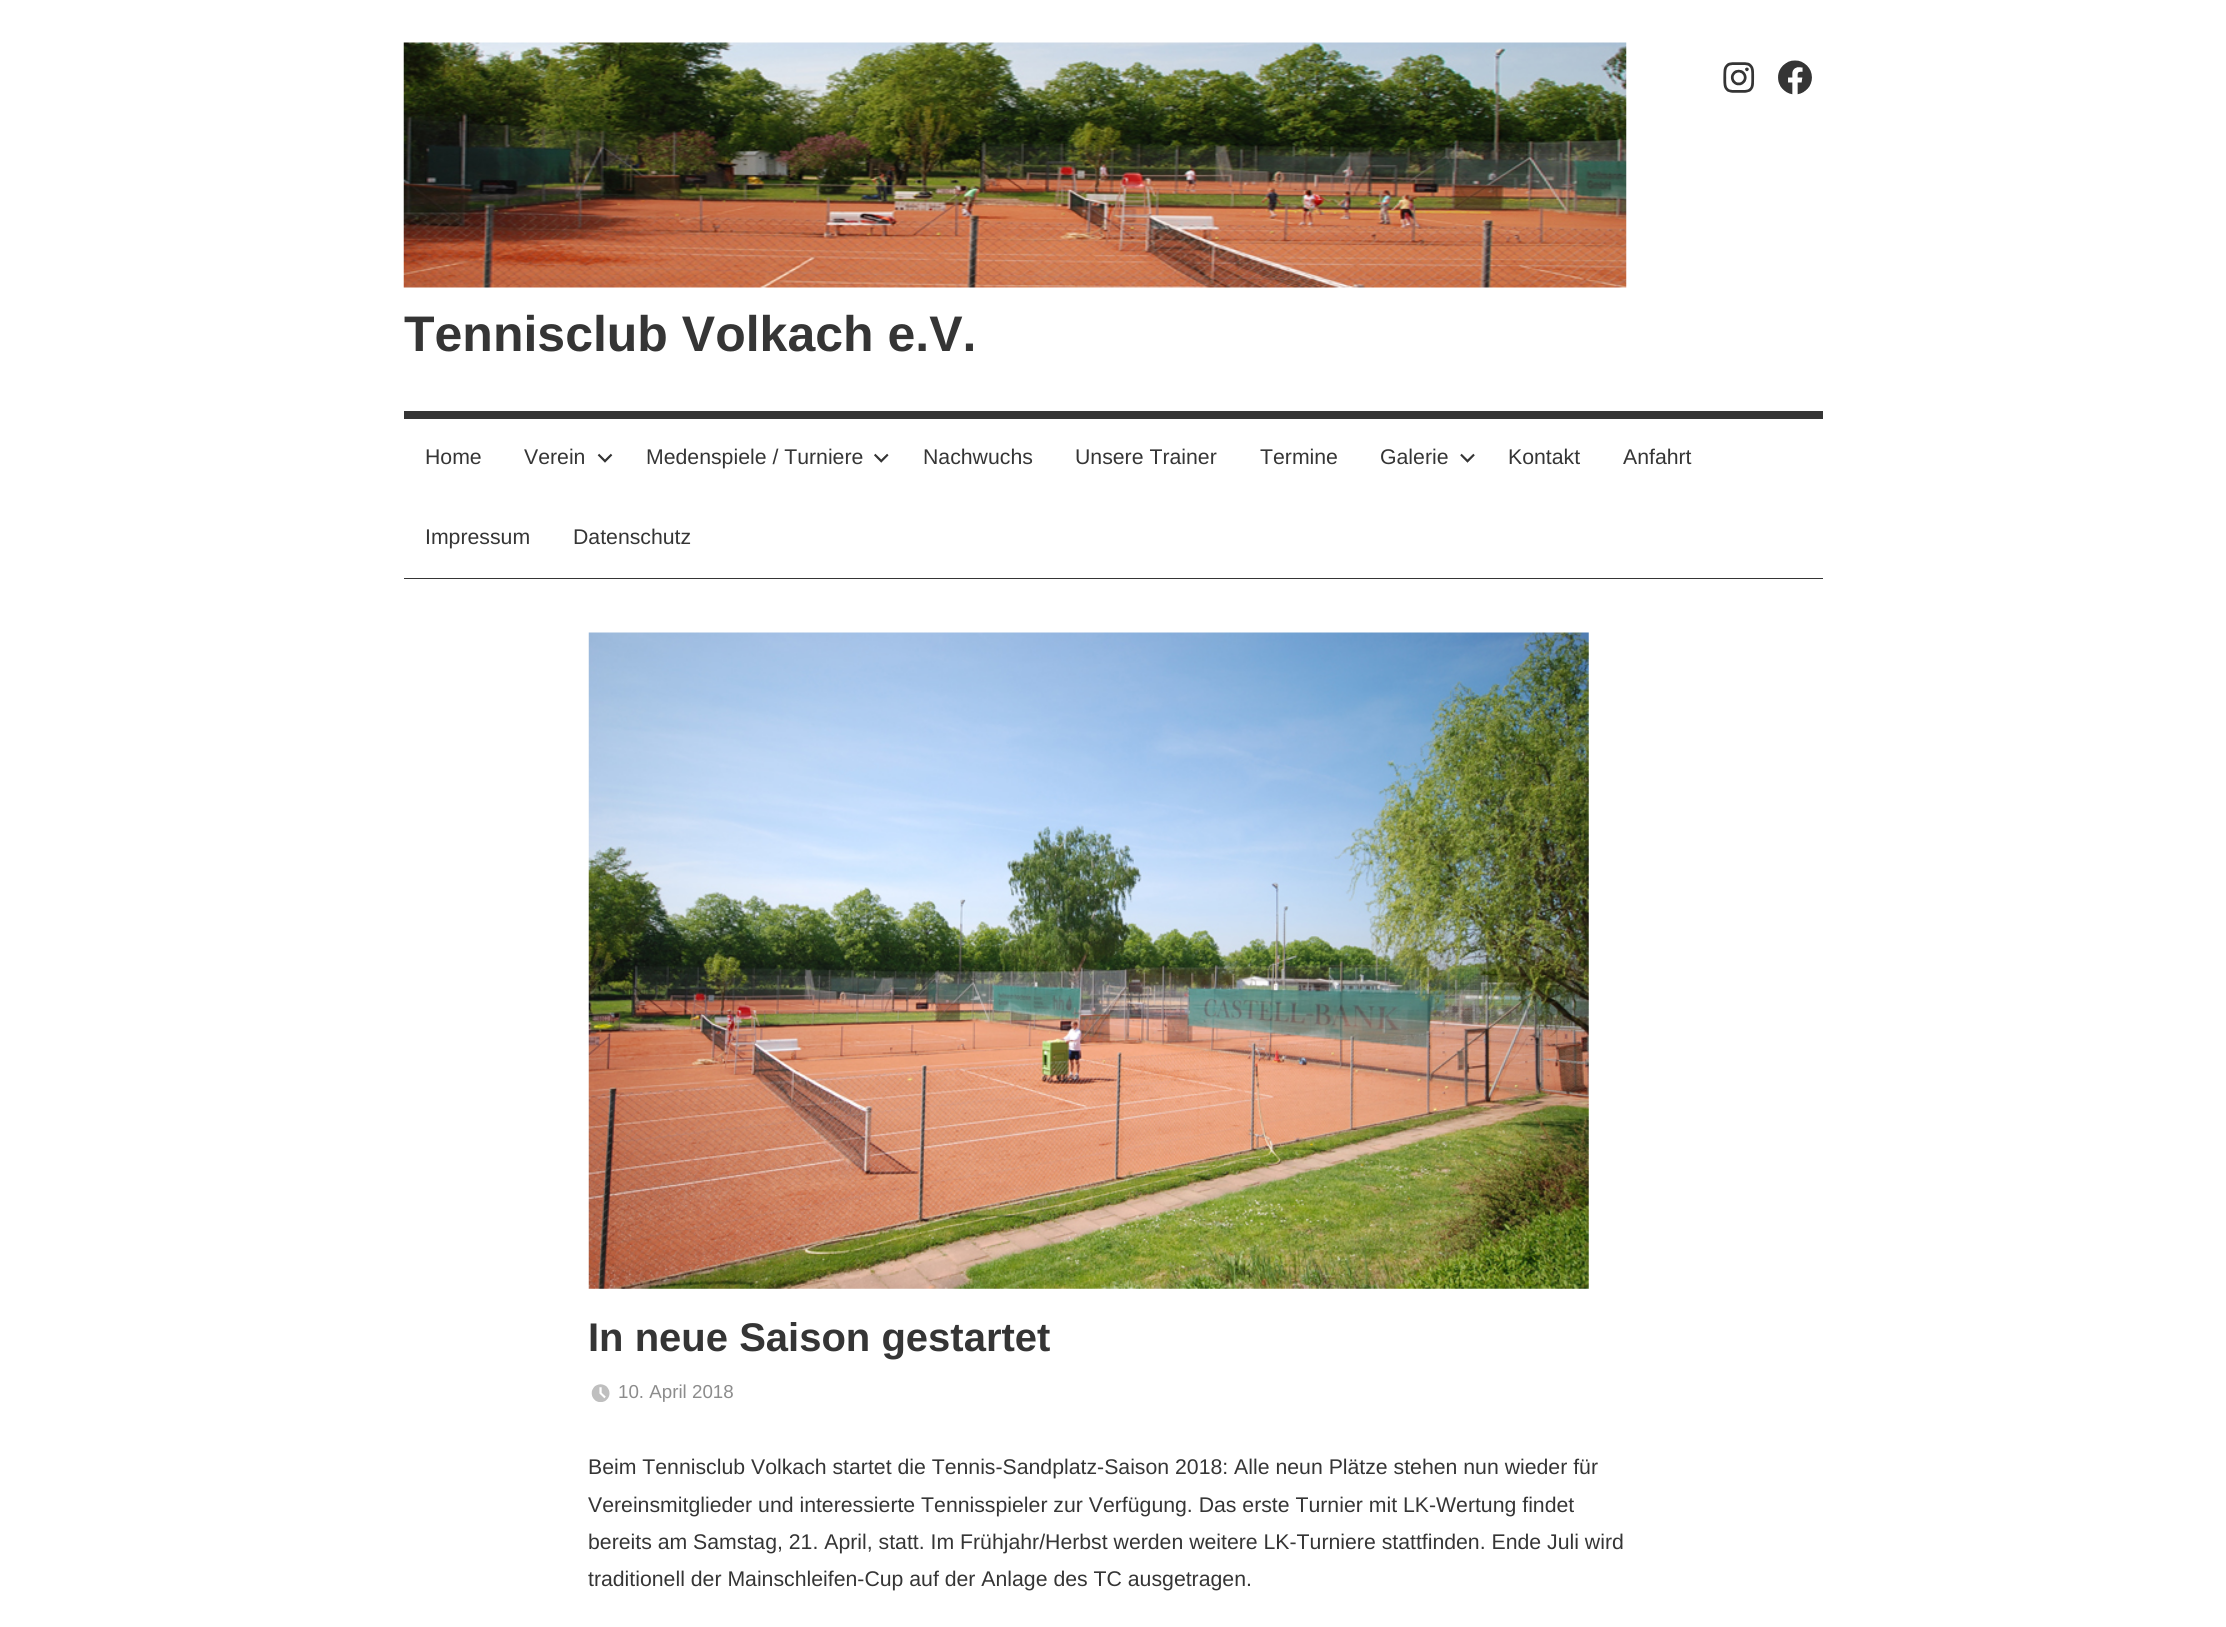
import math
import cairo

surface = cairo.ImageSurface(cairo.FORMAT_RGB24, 2226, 1627)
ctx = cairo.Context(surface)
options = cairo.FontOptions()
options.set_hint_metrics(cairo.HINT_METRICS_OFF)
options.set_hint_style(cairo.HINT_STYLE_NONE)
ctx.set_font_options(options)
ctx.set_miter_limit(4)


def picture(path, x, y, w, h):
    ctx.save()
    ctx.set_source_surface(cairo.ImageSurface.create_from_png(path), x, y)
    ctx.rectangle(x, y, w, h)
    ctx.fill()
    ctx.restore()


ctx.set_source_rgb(1, 1, 1)
ctx.paint()
picture("img1.png", 1723, 62, 32, 31)
picture("img2.png", 1778, 60, 34, 35)
picture("img3.png", 403, 42, 1224, 246)
ctx.select_font_face("Liberation Sans", cairo.FONT_SLANT_NORMAL, cairo.FONT_WEIGHT_BOLD)
ctx.set_font_size(50)
ctx.set_source_rgb(0.208, 0.208, 0.208)
ctx.move_to(404, 351)
ctx.show_text("Tennisclub Volkach e.V.")
ctx.rectangle(404, 411, 1419, 8)
ctx.fill()
ctx.rectangle(404, 578, 1419, 1)
ctx.fill()
ctx.select_font_face("Liberation Sans")
ctx.set_font_size(21.25)
ctx.move_to(425, 464)
ctx.show_text("Home")
ctx.move_to(524, 464)
ctx.show_text("Verein")
picture("img4.png", 597, 453, 16, 10)
ctx.move_to(646, 464)
ctx.show_text("Medenspiele / Turniere")
picture("img5.png", 874, 453, 15, 10)
ctx.move_to(923, 464)
ctx.show_text("Nachwuchs")
ctx.move_to(1075, 464)
ctx.show_text("Unsere Trainer")
ctx.move_to(1260, 464)
ctx.show_text("Termine")
ctx.move_to(1380, 464)
ctx.show_text("Galerie")
picture("img6.png", 1460, 453, 15, 10)
ctx.move_to(1508, 464)
ctx.show_text("Kontakt")
ctx.move_to(1623, 464)
ctx.show_text("Anfahrt")
ctx.move_to(425, 544)
ctx.show_text("Impressum")
ctx.move_to(573, 544)
ctx.show_text("Datenschutz")
picture("img7.png", 588, 632, 1001, 657)
ctx.select_font_face("Liberation Sans", cairo.FONT_SLANT_NORMAL, cairo.FONT_WEIGHT_BOLD)
ctx.set_font_size(40)
ctx.move_to(588, 1351)
ctx.show_text("In neue Saison gestartet")
picture("img8.png", 591, 1384, 19, 18)
ctx.select_font_face("Liberation Sans")
ctx.set_font_size(18.75)
ctx.set_source_rgb(0.549, 0.549, 0.549)
ctx.move_to(618, 1398)
ctx.show_text("10. April 2018")
ctx.set_font_size(21.25)
ctx.set_source_rgb(0.208, 0.208, 0.208)
ctx.move_to(588, 1474)
ctx.show_text("Beim Tennisclub Volkach startet die Tennis-Sandplatz-Saison 2018: Alle neun Plätze stehen nun wieder für")
ctx.move_to(588, 1512)
ctx.show_text("Vereinsmitglieder und interessierte Tennisspieler zur Verfügung. Das erste Turnier mit LK-Wertung findet")
ctx.move_to(588, 1549)
ctx.show_text("bereits am Samstag, 21. April, statt. Im Frühjahr/Herbst werden weitere LK-Turniere stattfinden. Ende Juli wird")
ctx.move_to(588, 1586)
ctx.show_text("traditionell der Mainschleifen-Cup auf der Anlage des TC ausgetragen.")
surface.write_to_png("page.png")
